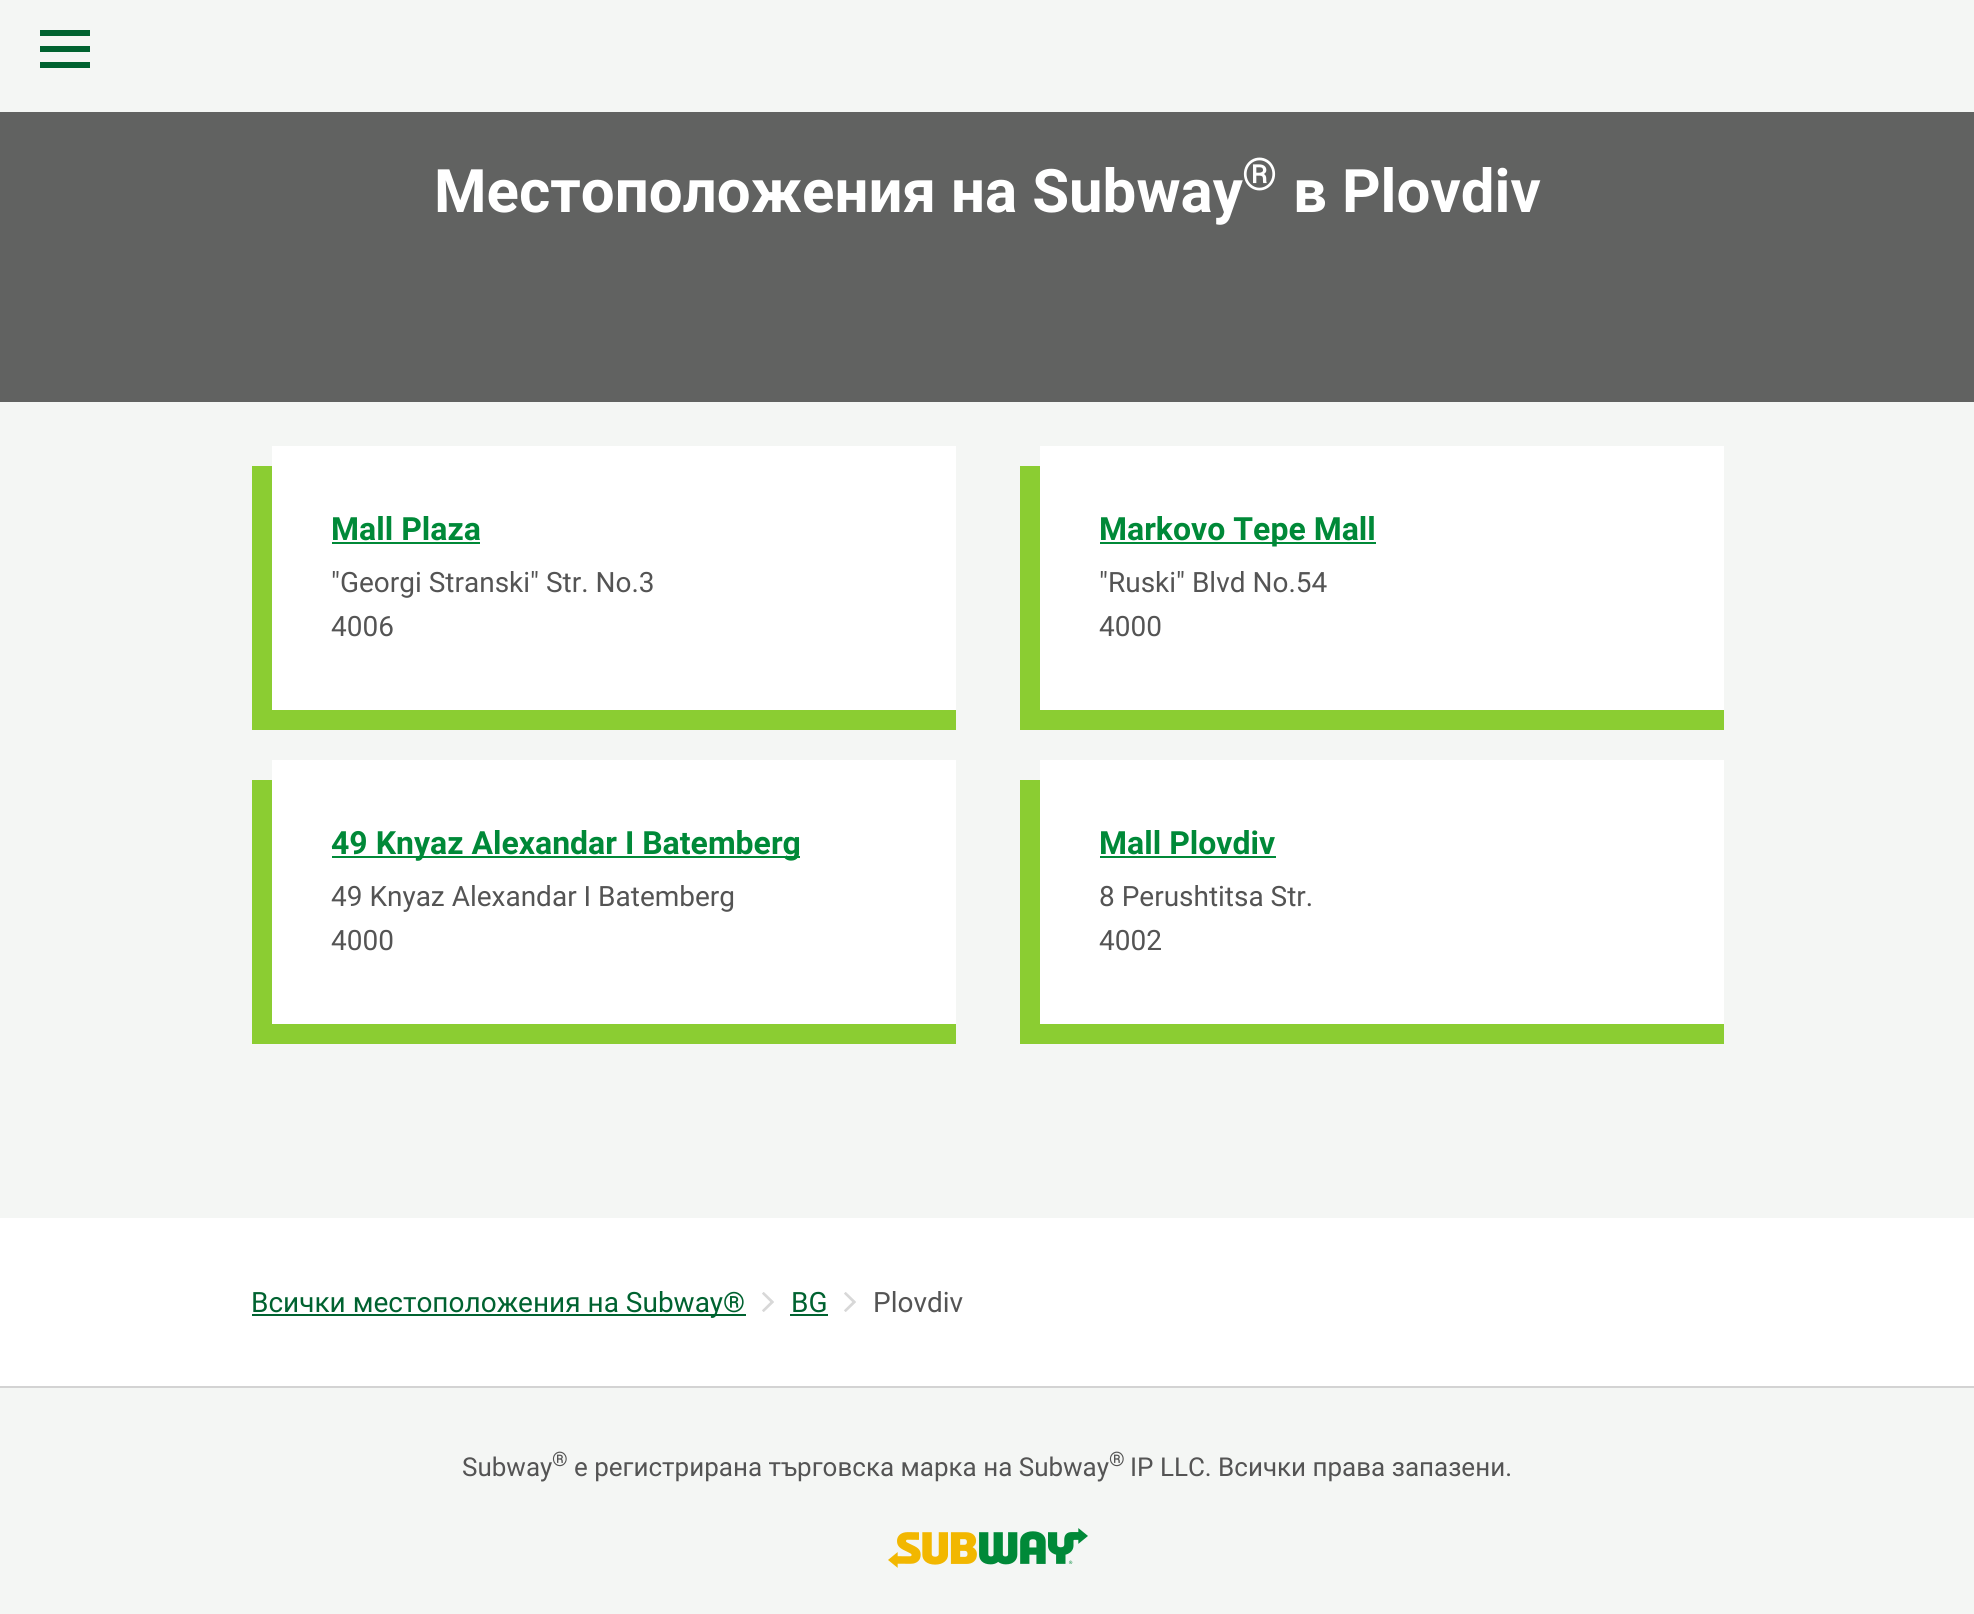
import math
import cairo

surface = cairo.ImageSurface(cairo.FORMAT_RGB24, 1974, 1614)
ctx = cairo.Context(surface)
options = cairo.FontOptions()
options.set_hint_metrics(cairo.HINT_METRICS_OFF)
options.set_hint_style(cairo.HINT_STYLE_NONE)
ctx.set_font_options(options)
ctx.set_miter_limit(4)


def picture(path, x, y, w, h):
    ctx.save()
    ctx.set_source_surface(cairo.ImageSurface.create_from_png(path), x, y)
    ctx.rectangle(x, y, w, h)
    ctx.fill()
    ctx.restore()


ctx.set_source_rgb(1, 1, 1)
ctx.paint()
ctx.set_source_rgb(0.957, 0.961, 0.957)
ctx.rectangle(0, 0, 1974, 112)
ctx.fill()
ctx.set_source_rgb(0, 0.384, 0.188)
ctx.rectangle(40, 30, 50, 6)
ctx.fill()
ctx.rectangle(40, 46, 50, 6)
ctx.fill()
ctx.rectangle(40, 62, 50, 6)
ctx.fill()
ctx.set_source_rgb(0.957, 0.961, 0.957)
ctx.rectangle(0, 402, 1974, 816)
ctx.fill()
ctx.set_source_rgb(0.38, 0.384, 0.38)
ctx.rectangle(0, 112, 1974, 290)
ctx.fill()
ctx.select_font_face("Roboto", cairo.FONT_SLANT_NORMAL, cairo.FONT_WEIGHT_BOLD)
ctx.set_font_size(60)
ctx.set_source_rgb(1, 1, 1)
ctx.move_to(434, 212)
ctx.show_text("Местоположения на Subway")
ctx.set_font_size(45)
ctx.move_to(1242, 190)
ctx.show_text("®")
ctx.set_font_size(60)
ctx.move_to(1293, 212)
ctx.show_text("в Plovdiv")
ctx.set_source_rgb(0.545, 0.804, 0.196)
ctx.rectangle(252, 466, 704, 264)
ctx.fill()
ctx.set_source_rgb(1, 1, 1)
ctx.rectangle(272, 446, 684, 264)
ctx.fill()
ctx.set_font_size(32)
ctx.set_source_rgb(0, 0.537, 0.22)
ctx.move_to(331, 540)
ctx.show_text("Mall Plaza")
ctx.rectangle(332, 542, 148, 2)
ctx.fill()
ctx.select_font_face("Roboto")
ctx.set_font_size(28)
ctx.set_source_rgb(0.329, 0.329, 0.329)
ctx.move_to(331, 592)
ctx.show_text("\"Georgi Stranski\" Str. No.3")
ctx.move_to(331, 636)
ctx.show_text("4006")
ctx.set_source_rgb(0.545, 0.804, 0.196)
ctx.rectangle(1020, 466, 704, 264)
ctx.fill()
ctx.set_source_rgb(1, 1, 1)
ctx.rectangle(1040, 446, 684, 264)
ctx.fill()
ctx.set_source_rgb(0, 0.537, 0.22)
ctx.rectangle(1100, 542, 276, 2)
ctx.fill()
ctx.select_font_face("Roboto", cairo.FONT_SLANT_NORMAL, cairo.FONT_WEIGHT_BOLD)
ctx.set_font_size(32)
ctx.move_to(1099, 540)
ctx.show_text("Markovo Tepe Mall")
ctx.select_font_face("Roboto")
ctx.set_font_size(28)
ctx.set_source_rgb(0.329, 0.329, 0.329)
ctx.move_to(1099, 592)
ctx.show_text("\"Ruski\" Blvd No.54")
ctx.move_to(1099, 636)
ctx.show_text("4000")
ctx.set_source_rgb(0.545, 0.804, 0.196)
ctx.rectangle(252, 780, 704, 264)
ctx.fill()
ctx.set_source_rgb(1, 1, 1)
ctx.rectangle(272, 760, 684, 264)
ctx.fill()
ctx.set_source_rgb(0, 0.537, 0.22)
ctx.rectangle(332, 856, 468, 2)
ctx.fill()
ctx.select_font_face("Roboto", cairo.FONT_SLANT_NORMAL, cairo.FONT_WEIGHT_BOLD)
ctx.set_font_size(32)
ctx.move_to(331, 854)
ctx.show_text("49 Knyaz Alexandar I Batemberg")
ctx.select_font_face("Roboto")
ctx.set_font_size(28)
ctx.set_source_rgb(0.329, 0.329, 0.329)
ctx.move_to(331, 906)
ctx.show_text("49 Knyaz Alexandar I Batemberg")
ctx.move_to(331, 950)
ctx.show_text("4000")
ctx.set_source_rgb(0.545, 0.804, 0.196)
ctx.rectangle(1020, 780, 704, 264)
ctx.fill()
ctx.set_source_rgb(1, 1, 1)
ctx.rectangle(1040, 760, 684, 264)
ctx.fill()
ctx.select_font_face("Roboto", cairo.FONT_SLANT_NORMAL, cairo.FONT_WEIGHT_BOLD)
ctx.set_font_size(32)
ctx.set_source_rgb(0, 0.537, 0.22)
ctx.move_to(1099, 854)
ctx.show_text("Mall Plovdiv")
ctx.rectangle(1100, 856, 176, 2)
ctx.fill()
ctx.select_font_face("Roboto")
ctx.set_font_size(28)
ctx.set_source_rgb(0.329, 0.329, 0.329)
ctx.move_to(1099, 906)
ctx.show_text("8 Perushtitsa Str.")
ctx.move_to(1099, 950)
ctx.show_text("4002")
ctx.set_source_rgb(0, 0.384, 0.188)
ctx.rectangle(252, 1314, 494, 2)
ctx.fill()
ctx.move_to(251, 1312)
ctx.show_text("Всички местоположения на Subway®")
picture("img1.png", 762, 1292, 12, 20)
ctx.move_to(791, 1312)
ctx.show_text("BG")
ctx.rectangle(790, 1314, 38, 2)
ctx.fill()
picture("img1.png", 844, 1292, 12, 20)
ctx.set_source_rgb(0.329, 0.329, 0.329)
ctx.move_to(873, 1312)
ctx.show_text("Plovdiv")
ctx.set_source_rgb(0.957, 0.961, 0.957)
ctx.rectangle(0, 1388, 1974, 226)
ctx.fill()
ctx.set_source_rgb(0.827, 0.827, 0.827)
ctx.rectangle(0, 1386, 1974, 2)
ctx.fill()
ctx.set_font_size(26)
ctx.set_source_rgb(0.329, 0.329, 0.329)
ctx.move_to(462, 1476)
ctx.show_text("Subway")
ctx.set_font_size(20)
ctx.move_to(552, 1466)
ctx.show_text("®")
ctx.set_font_size(26)
ctx.move_to(574, 1476)
ctx.show_text("e регистрирана търговска марка на Subway")
ctx.set_font_size(20)
ctx.move_to(1109, 1466)
ctx.show_text("®")
ctx.set_font_size(26)
ctx.move_to(1130, 1476)
ctx.show_text("IP LLC. Всички права запазени.")
picture("img2.png", 888, 1528, 200, 40)
surface.write_to_png("page.png")
